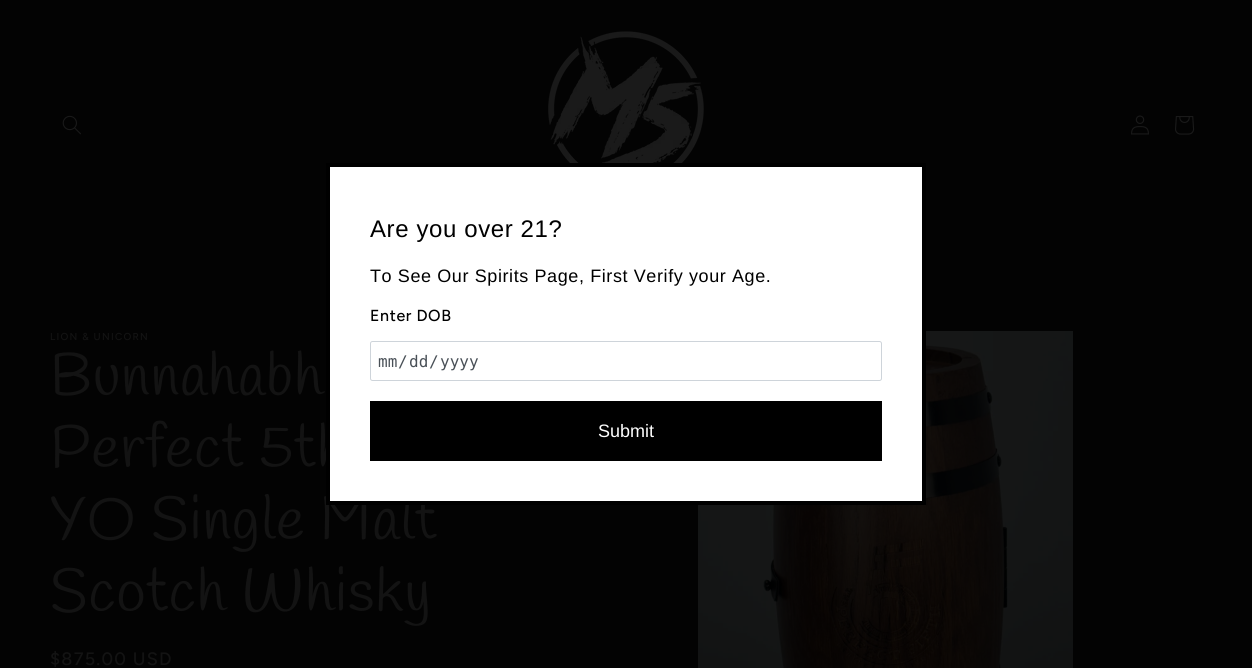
import math
import cairo

surface = cairo.ImageSurface(cairo.FORMAT_RGB24, 1252, 668)
ctx = cairo.Context(surface)
options = cairo.FontOptions()
options.set_hint_metrics(cairo.HINT_METRICS_OFF)
options.set_hint_style(cairo.HINT_STYLE_NONE)
ctx.set_font_options(options)
ctx.set_miter_limit(4)


def spaced_text(x, y, s, letter, word):
    ctx.move_to(x, y)
    for ch in s:
        ctx.show_text(ch)
        ctx.rel_move_to(letter + word * (ch == ' '), 0)


def round_rect(x, y, w, h, r):
    ctx.new_sub_path()
    for i, (u, v) in enumerate([(x + w - r, y + h - r), (x + r, y + h - r), (x + r, y + r), (x + w - r, y + r)]):
        ctx.arc(u, v, r, i * math.pi / 2, (i + 1) * math.pi / 2)
    ctx.close_path()


def picture(path, x, y, w, h):
    ctx.save()
    ctx.set_source_surface(cairo.ImageSurface.create_from_png(path), x, y)
    ctx.rectangle(x, y, w, h)
    ctx.fill()
    ctx.restore()


ctx.set_source_rgb(0.012, 0.012, 0.012)
ctx.paint()
picture("img1.png", 62, 115, 19, 20)
picture("img2.png", 548, 31, 156, 132)
picture("img3.png", 1131, 115, 18, 20)
picture("img4.png", 1175, 116, 20, 19)
ctx.select_font_face("Figtree Medium")
ctx.set_font_size(10)
ctx.set_source_rgb(0.078, 0.078, 0.078)
spaced_text(50, 340, "LION & UNICORN", 1.25, 0)
ctx.select_font_face("Handlee")
ctx.set_font_size(60)
spaced_text(50, 395, "Bunnahabh", 0.9, 0)
spaced_text(50, 467, "Perfect 5th", 0.9, 0)
spaced_text(50, 539, "YO Single Malt", 0.9, 0)
spaced_text(50, 611, "Scotch Whisky", 0.9, 0)
ctx.select_font_face("Figtree Medium")
ctx.set_font_size(18)
spaced_text(50, 665, "$875.00 USD", 1.25, 0)
picture("img5.png", 698, 331, 375, 337)
ctx.set_source_rgb(1, 1, 1)
ctx.rectangle(328, 165, 596, 338)
ctx.fill_preserve()
ctx.set_source_rgb(0, 0, 0)
ctx.set_line_width(4)
ctx.stroke()
ctx.select_font_face("Liberation Sans")
ctx.set_font_size(24)
spaced_text(370, 237, "Are you over 21?", 0.6, 0)
ctx.set_font_size(18)
spaced_text(370, 282, "To See Our Spirits Page, First Verify your Age.", 0.6, 0)
ctx.select_font_face("Figtree Medium")
ctx.set_font_size(16)
spaced_text(370, 321, "Enter DOB", 0.6, 0)
round_rect(370.5, 341.5, 511, 39, 2)
ctx.set_source_rgb(0.808, 0.831, 0.855)
ctx.set_line_width(1)
ctx.stroke()
ctx.select_font_face("DejaVu Sans Mono")
ctx.set_source_rgb(0.286, 0.314, 0.341)
ctx.move_to(378, 367)
ctx.show_text("mm")
ctx.move_to(398, 367)
ctx.show_text("/")
ctx.move_to(409, 367)
ctx.show_text("dd")
ctx.move_to(429, 367)
ctx.show_text("/")
ctx.move_to(440, 367)
ctx.show_text("yyyy")
ctx.set_source_rgb(0, 0, 0)
ctx.rectangle(370, 401, 512, 60)
ctx.fill()
ctx.select_font_face("Liberation Sans")
ctx.set_font_size(18)
ctx.set_source_rgb(1, 1, 1)
ctx.move_to(598, 437)
ctx.show_text("Submit")
surface.write_to_png("page.png")
